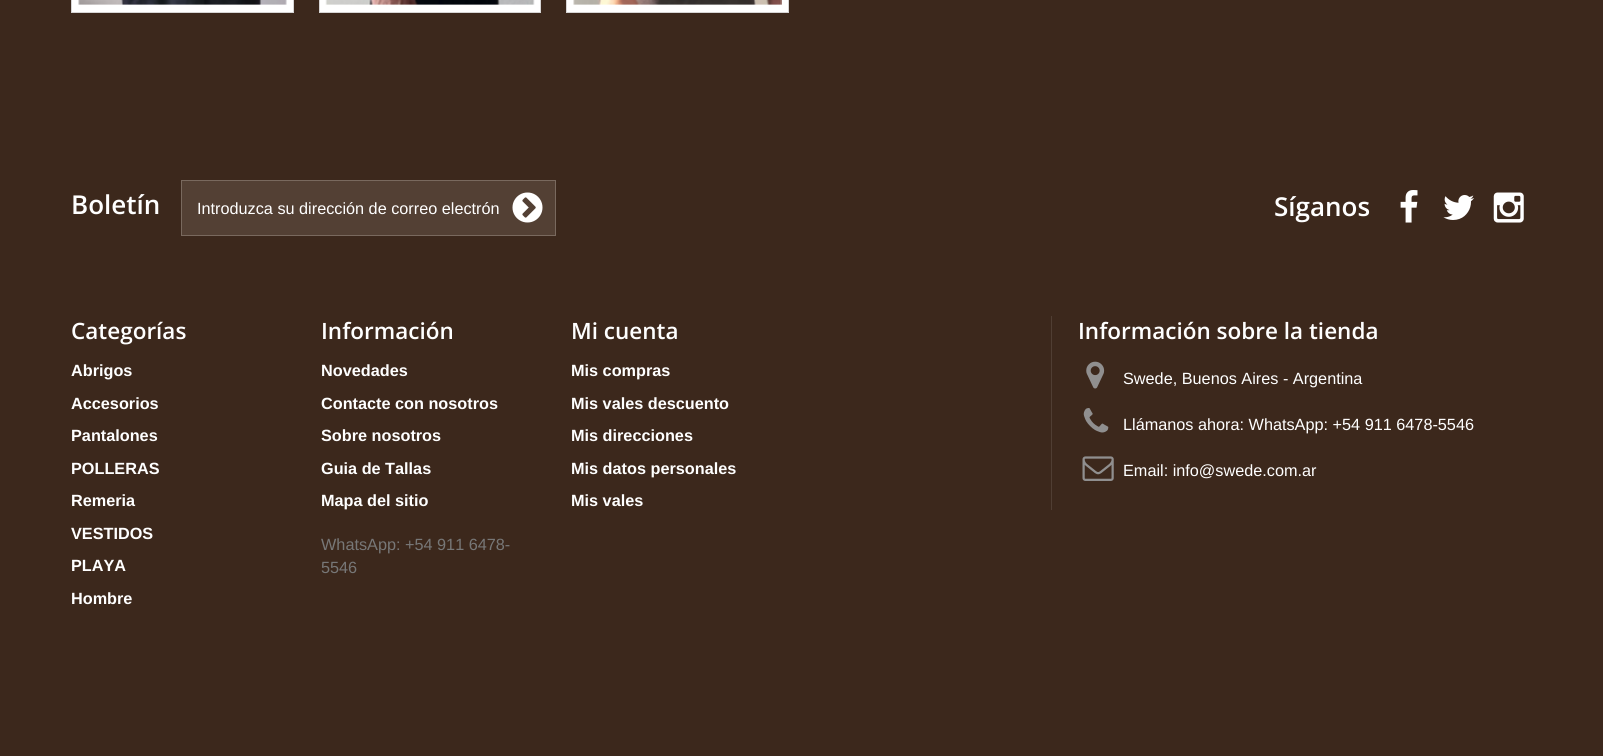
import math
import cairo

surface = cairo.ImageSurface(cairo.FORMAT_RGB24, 1603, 756)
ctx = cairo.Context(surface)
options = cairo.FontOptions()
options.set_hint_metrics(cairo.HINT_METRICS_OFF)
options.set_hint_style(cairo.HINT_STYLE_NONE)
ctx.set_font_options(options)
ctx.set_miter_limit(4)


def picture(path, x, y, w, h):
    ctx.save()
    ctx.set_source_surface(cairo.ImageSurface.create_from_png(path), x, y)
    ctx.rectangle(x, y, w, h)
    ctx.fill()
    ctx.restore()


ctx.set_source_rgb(0.235, 0.157, 0.11)
ctx.paint()
ctx.set_source_rgb(1, 1, 1)
ctx.rectangle(71.5, -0.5, 222, 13)
ctx.fill_preserve()
ctx.set_source_rgb(0.839, 0.831, 0.831)
ctx.set_line_width(1)
ctx.stroke()
picture("img1.png", 78, 0, 209, 5)
ctx.set_source_rgb(1, 1, 1)
ctx.rectangle(319.5, -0.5, 221, 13)
ctx.fill_preserve()
ctx.set_source_rgb(0.839, 0.831, 0.831)
ctx.stroke()
picture("img2.png", 325, 0, 210, 5)
ctx.set_source_rgb(1, 1, 1)
ctx.rectangle(566.5, -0.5, 222, 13)
ctx.fill_preserve()
ctx.set_source_rgb(0.839, 0.831, 0.831)
ctx.stroke()
picture("img3.png", 573, 0, 209, 5)
ctx.select_font_face("Open Sans SemiBold")
ctx.set_font_size(26)
ctx.set_source_rgb(1, 1, 1)
ctx.move_to(71, 214)
ctx.show_text("Boletín")
ctx.set_source_rgb(0.325, 0.251, 0.204)
ctx.rectangle(181.5, 180.5, 374, 55)
ctx.fill_preserve()
ctx.set_source_rgb(0.475, 0.412, 0.369)
ctx.stroke()
ctx.select_font_face("Liberation Sans")
ctx.set_font_size(16.25)
ctx.set_source_rgb(1, 1, 1)
ctx.move_to(197, 214)
ctx.show_text("Introduzca su dirección de correo electrón")
picture("img4.png", 512, 192, 31, 31)
ctx.select_font_face("Open Sans SemiBold")
ctx.set_font_size(26)
ctx.move_to(1274, 216)
ctx.show_text("Síganos")
picture("img5.png", 1400, 190, 18, 33)
picture("img6.png", 1443, 195, 31, 25)
picture("img7.png", 1493, 192, 31, 31)
ctx.set_font_size(22.5)
ctx.move_to(71, 339)
ctx.show_text("Categorías")
ctx.select_font_face("Liberation Sans", cairo.FONT_SLANT_NORMAL, cairo.FONT_WEIGHT_BOLD)
ctx.set_font_size(16.25)
ctx.move_to(71, 376)
ctx.show_text("Abrigos")
ctx.move_to(71, 409)
ctx.show_text("Accesorios")
ctx.move_to(71, 441)
ctx.show_text("Pantalones")
ctx.move_to(71, 474)
ctx.show_text("POLLERAS")
ctx.move_to(71, 506)
ctx.show_text("Remeria")
ctx.move_to(71, 539)
ctx.show_text("VESTIDOS")
ctx.move_to(71, 571)
ctx.show_text("PLAYA")
ctx.move_to(71, 604)
ctx.show_text("Hombre")
ctx.select_font_face("Open Sans SemiBold")
ctx.set_font_size(22.5)
ctx.move_to(321, 339)
ctx.show_text("Información")
ctx.select_font_face("Liberation Sans", cairo.FONT_SLANT_NORMAL, cairo.FONT_WEIGHT_BOLD)
ctx.set_font_size(16.25)
ctx.move_to(321, 376)
ctx.show_text("Novedades")
ctx.move_to(321, 409)
ctx.show_text("Contacte con nosotros")
ctx.move_to(321, 441)
ctx.show_text("Sobre nosotros")
ctx.move_to(321, 474)
ctx.show_text("Guia de Tallas")
ctx.move_to(321, 506)
ctx.show_text("Mapa del sitio")
ctx.select_font_face("Liberation Sans")
ctx.set_source_rgb(0.467, 0.467, 0.467)
ctx.move_to(321, 550)
ctx.show_text("WhatsApp: +54 911 6478-")
ctx.move_to(321, 573)
ctx.show_text("5546")
ctx.select_font_face("Open Sans SemiBold")
ctx.set_font_size(22.5)
ctx.set_source_rgb(1, 1, 1)
ctx.move_to(571, 339)
ctx.show_text("Mi cuenta")
ctx.select_font_face("Liberation Sans", cairo.FONT_SLANT_NORMAL, cairo.FONT_WEIGHT_BOLD)
ctx.set_font_size(16.25)
ctx.move_to(571, 376)
ctx.show_text("Mis compras")
ctx.move_to(571, 409)
ctx.show_text("Mis vales descuento")
ctx.move_to(571, 441)
ctx.show_text("Mis direcciones")
ctx.move_to(571, 474)
ctx.show_text("Mis datos personales")
ctx.move_to(571, 506)
ctx.show_text("Mis vales")
ctx.set_source_rgb(0.314, 0.243, 0.2)
ctx.rectangle(1051, 316, 1, 194)
ctx.fill()
ctx.select_font_face("Open Sans SemiBold")
ctx.set_font_size(22.5)
ctx.set_source_rgb(1, 1, 1)
ctx.move_to(1078, 339)
ctx.show_text("Información sobre la tienda")
picture("img8.png", 1086, 361, 19, 28)
ctx.select_font_face("Liberation Sans")
ctx.set_font_size(16.25)
ctx.move_to(1123, 384)
ctx.show_text("Swede, Buenos Aires - Argentina")
picture("img9.png", 1083, 408, 26, 25)
ctx.move_to(1123, 430)
ctx.show_text("Llámanos ahora: WhatsApp: +54 911 6478-5546")
picture("img10.png", 1082, 456, 32, 25)
ctx.move_to(1123, 476)
ctx.show_text("Email: info@swede.com.ar")
surface.write_to_png("page.png")
